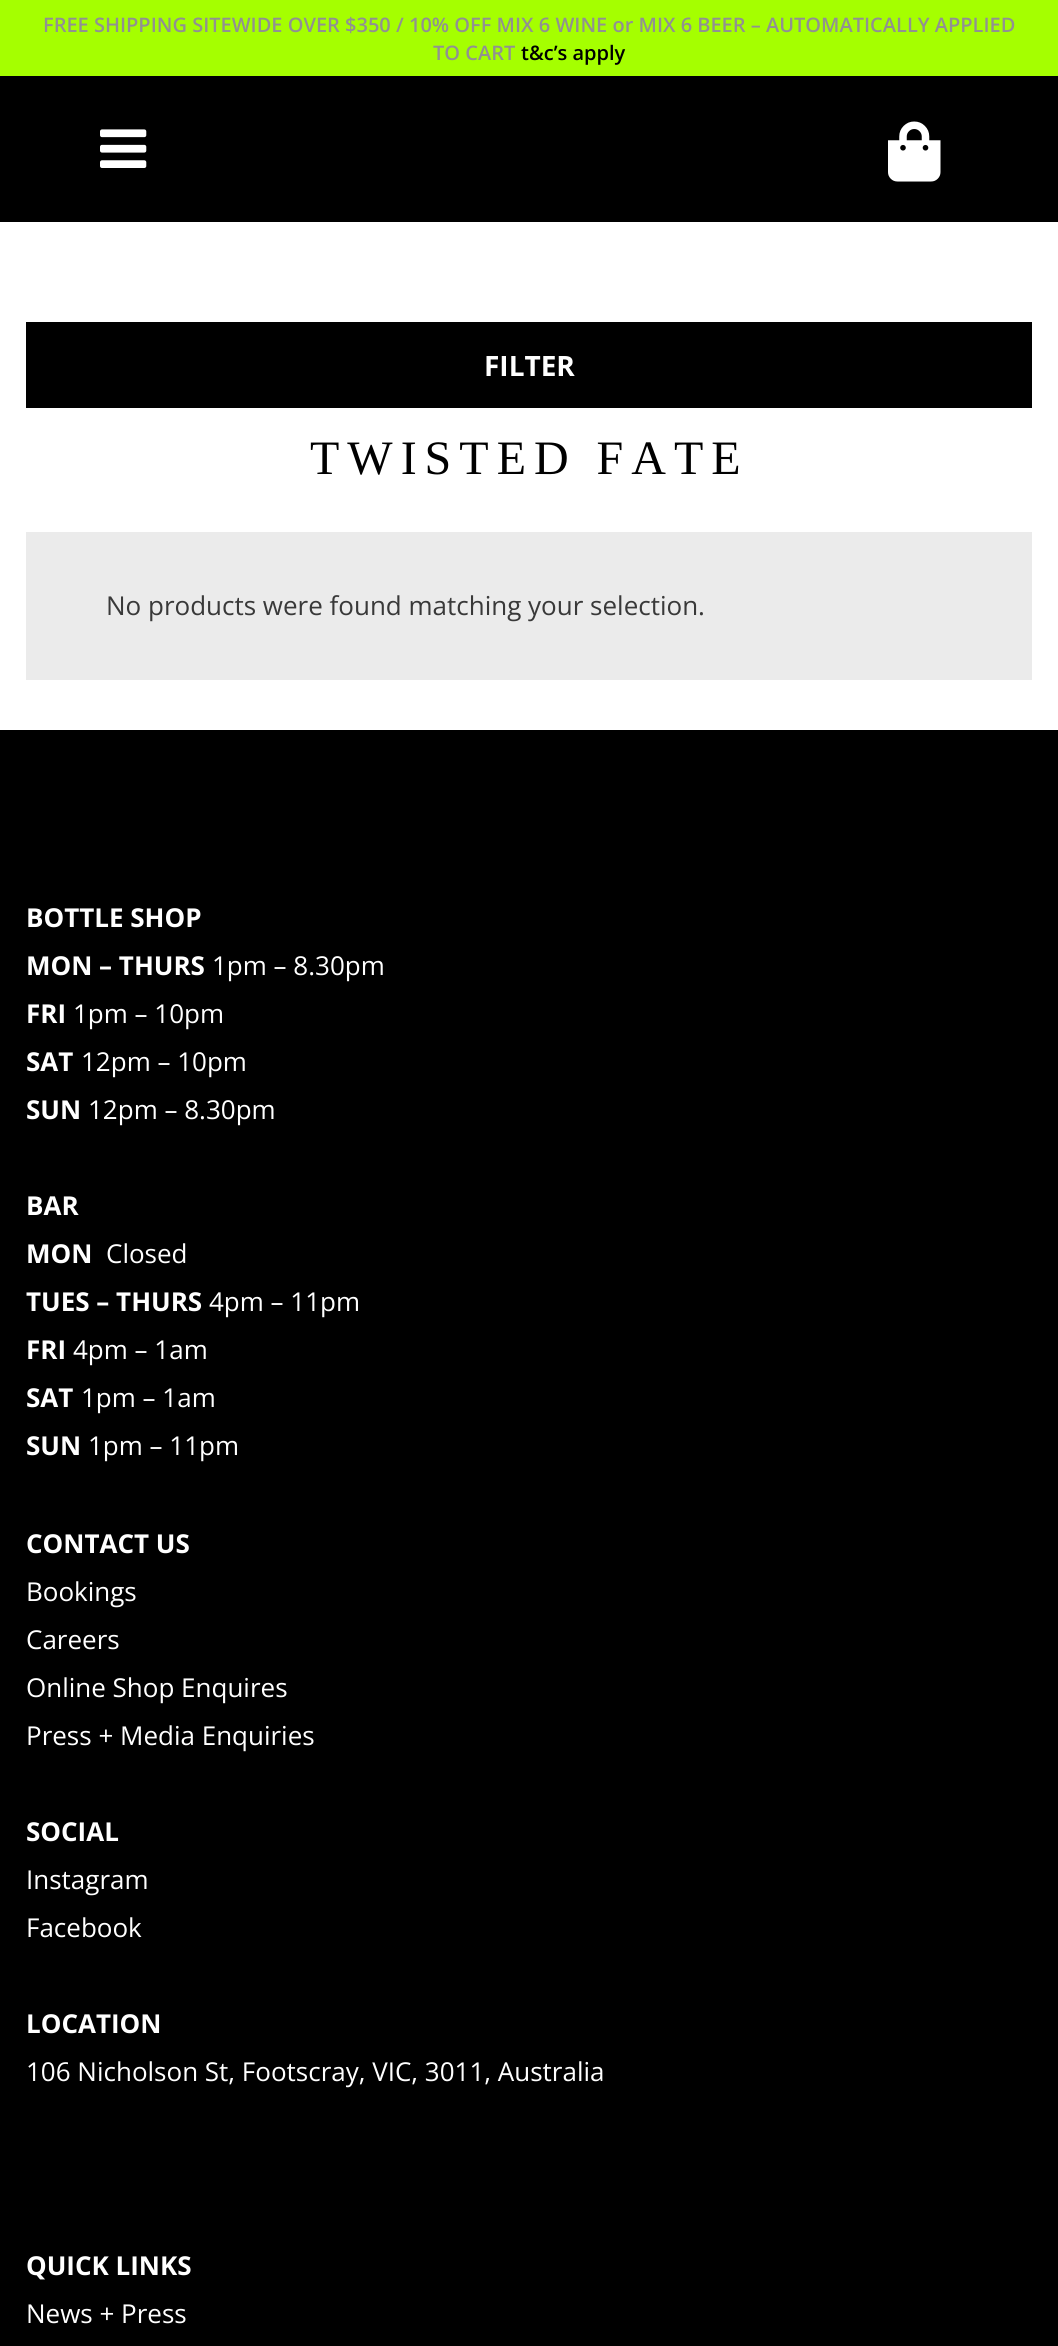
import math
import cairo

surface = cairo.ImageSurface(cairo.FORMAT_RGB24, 1058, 2346)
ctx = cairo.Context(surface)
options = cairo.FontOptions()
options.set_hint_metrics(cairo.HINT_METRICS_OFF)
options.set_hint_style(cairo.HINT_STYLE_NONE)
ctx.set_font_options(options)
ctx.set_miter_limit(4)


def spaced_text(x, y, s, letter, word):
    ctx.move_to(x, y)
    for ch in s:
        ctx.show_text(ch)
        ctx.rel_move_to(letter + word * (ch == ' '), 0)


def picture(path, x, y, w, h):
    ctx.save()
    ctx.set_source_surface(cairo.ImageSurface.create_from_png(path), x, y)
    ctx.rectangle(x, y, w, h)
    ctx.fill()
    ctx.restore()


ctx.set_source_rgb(1, 1, 1)
ctx.paint()
ctx.set_source_rgb(0.647, 1, 0)
ctx.rectangle(0, 0, 1058, 76)
ctx.fill()
ctx.select_font_face("Open Sans SemiBold")
ctx.set_font_size(20)
ctx.set_source_rgb(0.569, 0.569, 0.569)
ctx.move_to(43, 32)
ctx.show_text("FREE SHIPPING SITEWIDE OVER $350 / 10% OFF MIX 6 WINE or MIX 6 BEER – AUTOMATICALLY APPLIED")
ctx.move_to(433, 60)
ctx.show_text("TO CART")
ctx.set_source_rgb(0, 0, 0)
ctx.move_to(521, 60)
ctx.show_text("t&c’s apply")
ctx.rectangle(0, 76, 1058, 146)
ctx.fill()
picture("img1.png", 100, 129, 47, 39)
picture("img2.png", 888, 121, 53, 61)
ctx.rectangle(26, 322, 1006, 86)
ctx.fill()
ctx.select_font_face("Open Sans", cairo.FONT_SLANT_NORMAL, cairo.FONT_WEIGHT_BOLD)
ctx.set_font_size(28)
ctx.set_source_rgb(1, 1, 1)
ctx.move_to(484, 376)
ctx.show_text("FILTER")
ctx.select_font_face("Liberation Serif")
ctx.set_font_size(48)
ctx.set_source_rgb(0, 0, 0)
spaced_text(310, 474, "TWISTED FATE", 8, 0)
ctx.set_source_rgb(0.918, 0.918, 0.918)
ctx.rectangle(26, 532, 1006, 148)
ctx.fill()
ctx.select_font_face("Open Sans")
ctx.set_font_size(26)
ctx.set_source_rgb(0.224, 0.224, 0.224)
ctx.move_to(106, 615)
ctx.show_text("No products were found matching your selection.")
ctx.set_source_rgb(0, 0, 0)
ctx.rectangle(0, 730, 1058, 1616)
ctx.fill()
ctx.select_font_face("Open Sans", cairo.FONT_SLANT_NORMAL, cairo.FONT_WEIGHT_BOLD)
ctx.set_source_rgb(1, 1, 1)
ctx.move_to(26, 927)
ctx.show_text("BOTTLE SHOP")
ctx.move_to(26, 975)
ctx.show_text("MON – THURS")
ctx.select_font_face("Open Sans")
ctx.move_to(212, 975)
ctx.show_text("1pm – 8.30pm")
ctx.select_font_face("Open Sans", cairo.FONT_SLANT_NORMAL, cairo.FONT_WEIGHT_BOLD)
ctx.move_to(26, 1023)
ctx.show_text("FRI")
ctx.select_font_face("Open Sans")
ctx.move_to(73, 1023)
ctx.show_text("1pm – 10pm")
ctx.select_font_face("Open Sans", cairo.FONT_SLANT_NORMAL, cairo.FONT_WEIGHT_BOLD)
ctx.move_to(26, 1071)
ctx.show_text("SAT")
ctx.select_font_face("Open Sans")
ctx.move_to(81, 1071)
ctx.show_text("12pm – 10pm")
ctx.select_font_face("Open Sans", cairo.FONT_SLANT_NORMAL, cairo.FONT_WEIGHT_BOLD)
ctx.move_to(26, 1119)
ctx.show_text("SUN")
ctx.select_font_face("Open Sans")
ctx.move_to(88, 1119)
ctx.show_text("12pm – 8.30pm")
ctx.select_font_face("Open Sans", cairo.FONT_SLANT_NORMAL, cairo.FONT_WEIGHT_BOLD)
ctx.move_to(26, 1215)
ctx.show_text("BAR")
ctx.move_to(26, 1263)
ctx.show_text("MON")
ctx.select_font_face("Open Sans")
ctx.move_to(106, 1263)
ctx.show_text("Closed")
ctx.select_font_face("Open Sans", cairo.FONT_SLANT_NORMAL, cairo.FONT_WEIGHT_BOLD)
ctx.move_to(26, 1311)
ctx.show_text("TUES – THURS")
ctx.select_font_face("Open Sans")
ctx.move_to(209, 1311)
ctx.show_text("4pm – 11pm")
ctx.select_font_face("Open Sans", cairo.FONT_SLANT_NORMAL, cairo.FONT_WEIGHT_BOLD)
ctx.move_to(26, 1359)
ctx.show_text("FRI")
ctx.select_font_face("Open Sans")
ctx.move_to(73, 1359)
ctx.show_text("4pm – 1am")
ctx.select_font_face("Open Sans", cairo.FONT_SLANT_NORMAL, cairo.FONT_WEIGHT_BOLD)
ctx.move_to(26, 1407)
ctx.show_text("SAT")
ctx.select_font_face("Open Sans")
ctx.move_to(81, 1407)
ctx.show_text("1pm – 1am")
ctx.select_font_face("Open Sans", cairo.FONT_SLANT_NORMAL, cairo.FONT_WEIGHT_BOLD)
ctx.move_to(26, 1455)
ctx.show_text("SUN")
ctx.select_font_face("Open Sans")
ctx.move_to(88, 1455)
ctx.show_text("1pm – 11pm")
ctx.select_font_face("Open Sans", cairo.FONT_SLANT_NORMAL, cairo.FONT_WEIGHT_BOLD)
ctx.move_to(26, 1553)
ctx.show_text("CONTACT US")
ctx.select_font_face("Open Sans")
ctx.move_to(26, 1601)
ctx.show_text("Bookings")
ctx.move_to(26, 1649)
ctx.show_text("Careers")
ctx.move_to(26, 1697)
ctx.show_text("Online Shop Enquires")
ctx.move_to(26, 1745)
ctx.show_text("Press + Media Enquiries")
ctx.select_font_face("Open Sans", cairo.FONT_SLANT_NORMAL, cairo.FONT_WEIGHT_BOLD)
ctx.move_to(26, 1841)
ctx.show_text("SOCIAL")
ctx.select_font_face("Open Sans")
ctx.move_to(26, 1889)
ctx.show_text("Instagram")
ctx.move_to(26, 1937)
ctx.show_text("Facebook")
ctx.select_font_face("Open Sans", cairo.FONT_SLANT_NORMAL, cairo.FONT_WEIGHT_BOLD)
ctx.move_to(26, 2033)
ctx.show_text("LOCATION")
ctx.select_font_face("Open Sans")
ctx.move_to(26, 2081)
ctx.show_text("106 Nicholson St, Footscray, VIC, 3011, Australia")
ctx.select_font_face("Open Sans", cairo.FONT_SLANT_NORMAL, cairo.FONT_WEIGHT_BOLD)
ctx.move_to(26, 2275)
ctx.show_text("QUICK LINKS")
ctx.select_font_face("Open Sans")
ctx.move_to(26, 2323)
ctx.show_text("News + Press")
surface.write_to_png("page.png")
